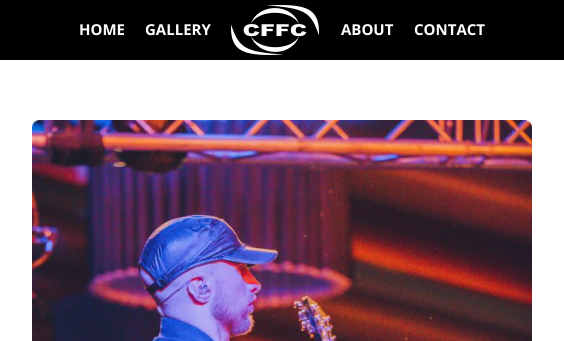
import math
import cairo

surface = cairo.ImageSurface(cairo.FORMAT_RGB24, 564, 341)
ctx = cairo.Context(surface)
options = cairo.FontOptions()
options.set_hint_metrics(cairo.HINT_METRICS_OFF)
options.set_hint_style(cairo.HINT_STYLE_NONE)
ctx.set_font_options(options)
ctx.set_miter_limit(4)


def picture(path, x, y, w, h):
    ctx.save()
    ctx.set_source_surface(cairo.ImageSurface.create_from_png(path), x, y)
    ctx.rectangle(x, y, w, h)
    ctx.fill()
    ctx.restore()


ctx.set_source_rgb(1, 1, 1)
ctx.paint()
ctx.set_source_rgb(0, 0, 0)
ctx.rectangle(0, 0, 564, 60)
ctx.fill()
picture("img1.png", 32, 120, 500, 221)
ctx.select_font_face("Open Sans", cairo.FONT_SLANT_NORMAL, cairo.FONT_WEIGHT_BOLD)
ctx.set_font_size(15)
ctx.set_source_rgb(1, 1, 1)
ctx.move_to(79, 35)
ctx.show_text("HOME")
ctx.move_to(145, 35)
ctx.show_text("GALLERY")
picture("img2.png", 231, 5, 88, 50)
ctx.move_to(341, 35)
ctx.show_text("ABOUT")
ctx.move_to(414, 35)
ctx.show_text("CONTACT")
surface.write_to_png("page.png")
